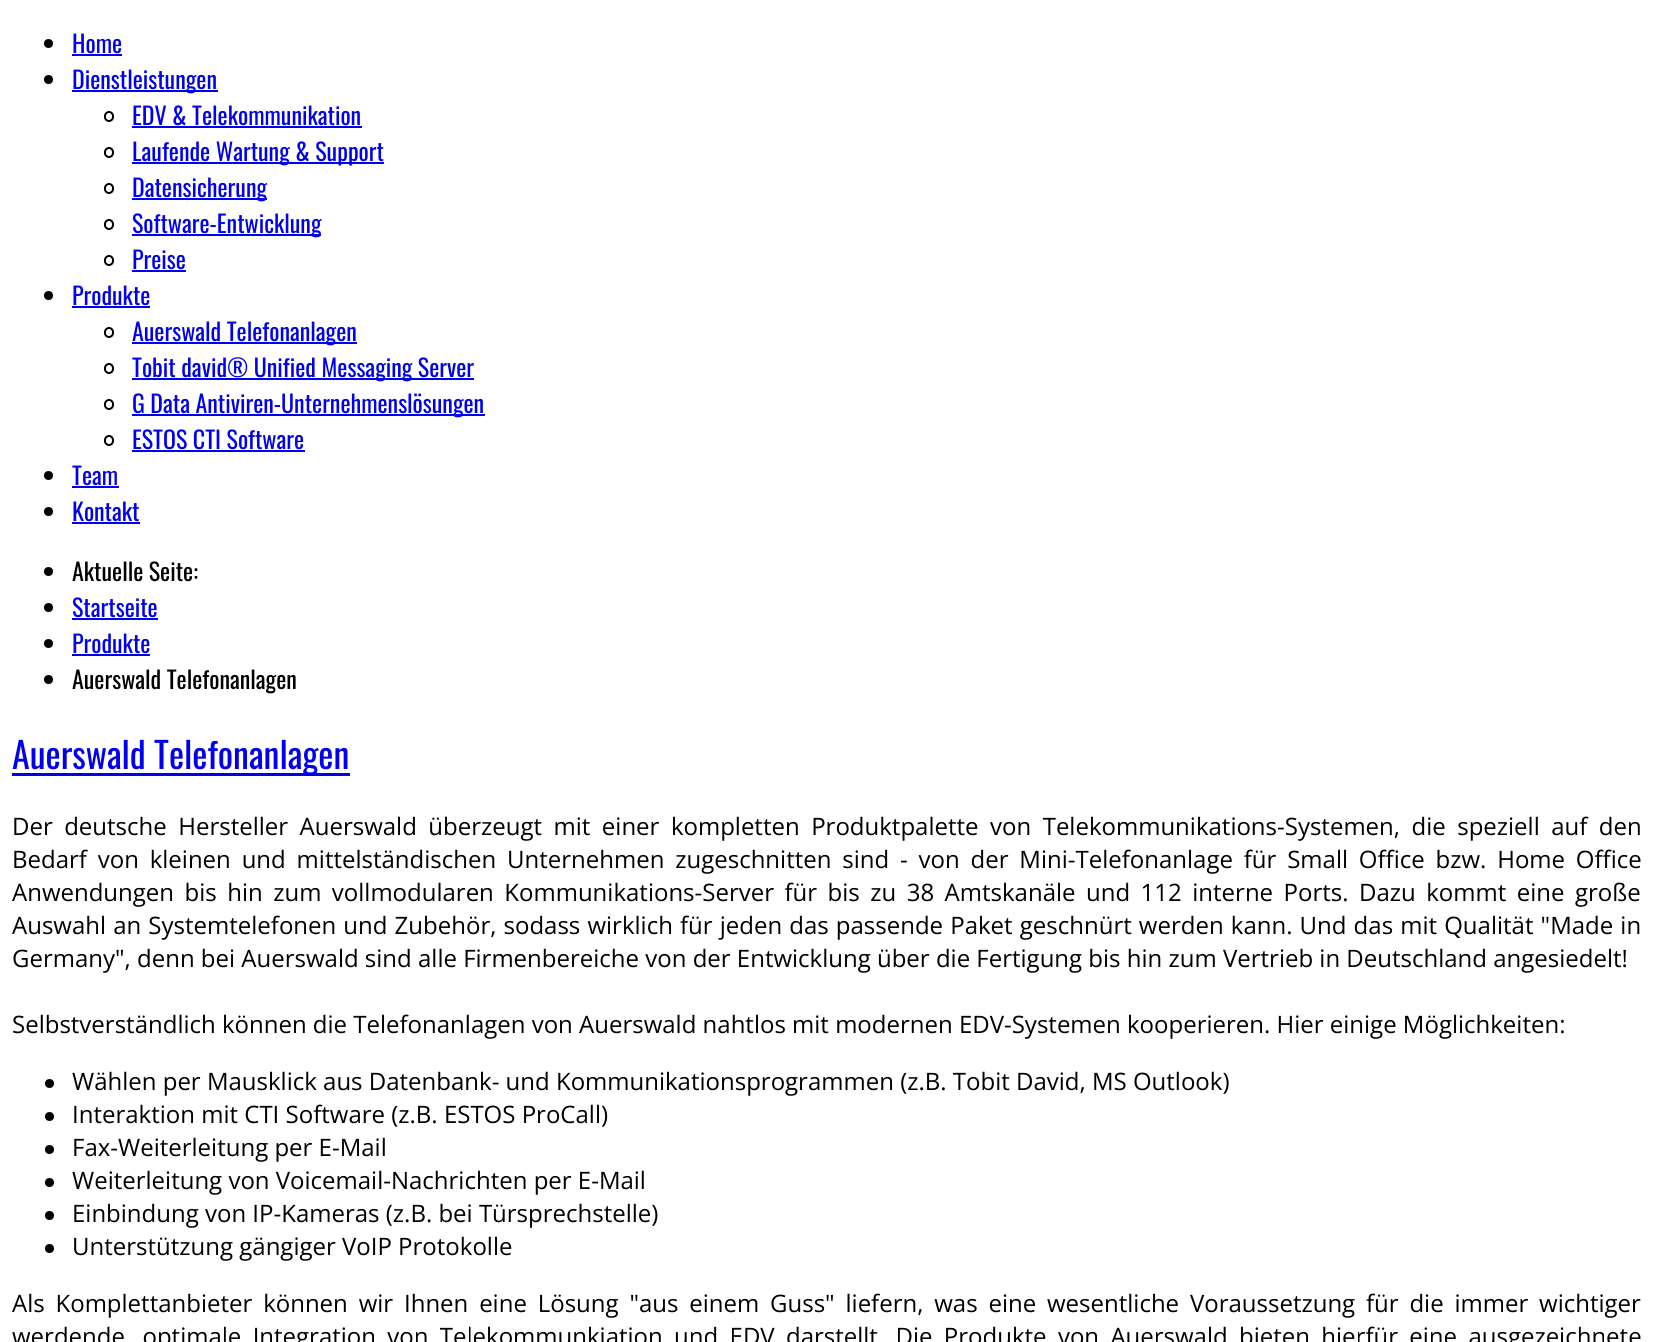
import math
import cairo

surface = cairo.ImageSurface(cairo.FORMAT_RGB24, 1653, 1342)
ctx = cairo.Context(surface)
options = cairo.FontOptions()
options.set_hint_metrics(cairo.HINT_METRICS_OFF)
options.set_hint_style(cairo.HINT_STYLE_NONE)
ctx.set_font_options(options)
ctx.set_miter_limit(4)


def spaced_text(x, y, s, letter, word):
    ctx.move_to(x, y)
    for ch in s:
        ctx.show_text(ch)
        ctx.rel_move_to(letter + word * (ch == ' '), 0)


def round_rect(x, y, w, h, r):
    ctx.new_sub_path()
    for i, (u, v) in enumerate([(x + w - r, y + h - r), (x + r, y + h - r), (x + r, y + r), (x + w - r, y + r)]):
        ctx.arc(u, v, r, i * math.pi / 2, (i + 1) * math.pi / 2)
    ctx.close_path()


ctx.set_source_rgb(1, 1, 1)
ctx.paint()
ctx.set_source_rgb(0, 0, 0)
ctx.arc(48.5, 43.5, 4.5, 0, 2 * math.pi)
ctx.fill()
ctx.select_font_face("Oswald")
ctx.set_font_size(24)
ctx.set_source_rgb(0, 0, 0.933)
ctx.move_to(72, 53)
ctx.show_text("Home")
ctx.rectangle(72, 54, 50, 2)
ctx.fill()
ctx.set_source_rgb(0, 0, 0)
ctx.arc(48.5, 79.5, 4.5, 0, 2 * math.pi)
ctx.fill()
ctx.set_source_rgb(0, 0, 0.933)
ctx.rectangle(72, 90, 146, 2)
ctx.fill()
ctx.move_to(72, 89)
ctx.show_text("Dienstleistungen")
round_rect(105, 112, 8, 9, 4)
ctx.set_source_rgb(0, 0, 0)
ctx.stroke()
ctx.set_source_rgb(0, 0, 0.933)
ctx.move_to(132, 125)
ctx.show_text("EDV & Telekommunikation")
ctx.rectangle(132, 126, 230, 2)
ctx.fill()
round_rect(105, 148, 8, 9, 4)
ctx.set_source_rgb(0, 0, 0)
ctx.stroke()
ctx.set_source_rgb(0, 0, 0.933)
ctx.rectangle(132, 162, 252, 2)
ctx.fill()
ctx.move_to(132, 161)
ctx.show_text("Laufende Wartung & Support")
round_rect(105, 184, 8, 9, 4)
ctx.set_source_rgb(0, 0, 0)
ctx.stroke()
ctx.set_source_rgb(0, 0, 0.933)
ctx.rectangle(132, 198, 135, 2)
ctx.fill()
ctx.move_to(132, 197)
ctx.show_text("Datensicherung")
round_rect(105, 220, 8, 9, 4)
ctx.set_source_rgb(0, 0, 0)
ctx.stroke()
ctx.set_source_rgb(0, 0, 0.933)
ctx.rectangle(132, 234, 189, 2)
ctx.fill()
ctx.move_to(132, 233)
ctx.show_text("Software-Entwicklung")
round_rect(105, 256, 8, 9, 4)
ctx.set_source_rgb(0, 0, 0)
ctx.stroke()
ctx.set_source_rgb(0, 0, 0.933)
ctx.move_to(132, 269)
ctx.show_text("Preise")
ctx.rectangle(132, 270, 54, 2)
ctx.fill()
ctx.set_source_rgb(0, 0, 0)
ctx.arc(48.5, 295.5, 4.5, 0, 2 * math.pi)
ctx.fill()
ctx.set_source_rgb(0, 0, 0.933)
ctx.move_to(72, 305)
ctx.show_text("Produkte")
ctx.rectangle(72, 306, 78, 2)
ctx.fill()
round_rect(105, 328, 8, 9, 4)
ctx.set_source_rgb(0, 0, 0)
ctx.stroke()
ctx.set_source_rgb(0, 0, 0.933)
ctx.rectangle(132, 342, 225, 2)
ctx.fill()
ctx.move_to(132, 341)
ctx.show_text("Auerswald Telefonanlagen")
round_rect(105, 364, 8, 9, 4)
ctx.set_source_rgb(0, 0, 0)
ctx.stroke()
ctx.set_source_rgb(0, 0, 0.933)
ctx.rectangle(132, 378, 342, 2)
ctx.fill()
ctx.move_to(132, 377)
ctx.show_text("Tobit david® Unified Messaging Server")
round_rect(105, 400, 8, 9, 4)
ctx.set_source_rgb(0, 0, 0)
ctx.stroke()
ctx.set_source_rgb(0, 0, 0.933)
ctx.rectangle(132, 414, 353, 2)
ctx.fill()
ctx.move_to(132, 413)
ctx.show_text("G Data Antiviren-Unternehmenslösungen")
round_rect(105, 436, 8, 9, 4)
ctx.set_source_rgb(0, 0, 0)
ctx.stroke()
ctx.set_source_rgb(0, 0, 0.933)
ctx.move_to(132, 449)
ctx.show_text("ESTOS CTI Software")
ctx.rectangle(132, 450, 173, 2)
ctx.fill()
ctx.set_source_rgb(0, 0, 0)
ctx.arc(48.5, 475.5, 4.5, 0, 2 * math.pi)
ctx.fill()
ctx.set_source_rgb(0, 0, 0.933)
ctx.move_to(72, 485)
ctx.show_text("Team")
ctx.rectangle(72, 486, 47, 2)
ctx.fill()
ctx.set_source_rgb(0, 0, 0)
ctx.arc(48.5, 511.5, 4.5, 0, 2 * math.pi)
ctx.fill()
ctx.set_source_rgb(0, 0, 0.933)
ctx.move_to(72, 521)
ctx.show_text("Kontakt")
ctx.rectangle(72, 522, 68, 2)
ctx.fill()
ctx.set_source_rgb(0, 0, 0)
ctx.arc(48.5, 571.5, 4.5, 0, 2 * math.pi)
ctx.fill()
ctx.move_to(72, 581)
ctx.show_text("Aktuelle Seite:")
ctx.new_path()
ctx.arc(48.5, 607.5, 4.5, 0, 2 * math.pi)
ctx.fill()
ctx.set_source_rgb(0, 0, 0.933)
ctx.move_to(72, 617)
ctx.show_text("Startseite")
ctx.rectangle(72, 618, 86, 2)
ctx.fill()
ctx.set_source_rgb(0, 0, 0)
ctx.arc(48.5, 643.5, 4.5, 0, 2 * math.pi)
ctx.fill()
ctx.set_source_rgb(0, 0, 0.933)
ctx.move_to(72, 653)
ctx.show_text("Produkte")
ctx.rectangle(72, 654, 78, 2)
ctx.fill()
ctx.set_source_rgb(0, 0, 0)
ctx.arc(48.5, 679.5, 4.5, 0, 2 * math.pi)
ctx.fill()
ctx.move_to(72, 689)
ctx.show_text("Auerswald Telefonanlagen")
ctx.set_source_rgb(0, 0, 0.933)
ctx.rectangle(12, 773, 338, 3)
ctx.fill()
ctx.set_font_size(36)
ctx.move_to(12, 769)
ctx.show_text("Auerswald Telefonanlagen")
ctx.select_font_face("Open Sans")
ctx.set_font_size(24)
ctx.set_source_rgb(0, 0, 0)
spaced_text(12, 835, "Der deutsche Hersteller Auerswald überzeugt mit einer kompletten Produktpalette von Telekommunikations-Systemen, die speziell auf den", 0, 5.25)
spaced_text(12, 868, "Bedarf von kleinen und mittelständischen Unternehmen zugeschnitten sind - von der Mini-Telefonanlage für Small Office bzw. Home Office", 0, 4.6)
spaced_text(12, 901, "Anwendungen bis hin zum vollmodularen Kommunikations-Server für bis zu 38 Amtskanäle und 112 interne Ports. Dazu kommt eine große", 0, 4.25)
spaced_text(12, 934, "Auswahl an Systemtelefonen und Zubehör, sodass wirklich für jeden das passende Paket geschnürt werden kann. Und das mit Qualität \"Made in", 0, 0.9)
ctx.move_to(12, 967)
ctx.show_text("Germany\", denn bei Auerswald sind alle Firmenbereiche von der Entwicklung über die Fertigung bis hin zum Vertrieb in Deutschland angesiedelt!")
ctx.move_to(12, 1033)
ctx.show_text("Selbstverständlich können die Telefonanlagen von Auerswald nahtlos mit modernen EDV-Systemen kooperieren. Hier einige Möglichkeiten:")
ctx.new_path()
ctx.arc(49.5, 1083.5, 4.5, 0, 2 * math.pi)
ctx.fill()
ctx.move_to(72, 1090)
ctx.show_text("Wählen per Mausklick aus Datenbank- und Kommunikationsprogrammen (z.B. Tobit David, MS Outlook)")
ctx.new_path()
ctx.arc(49.5, 1116.5, 4.5, 0, 2 * math.pi)
ctx.fill()
ctx.move_to(72, 1123)
ctx.show_text("Interaktion mit CTI Software (z.B. ESTOS ProCall)")
ctx.new_path()
ctx.arc(49.5, 1149.5, 4.5, 0, 2 * math.pi)
ctx.fill()
ctx.move_to(72, 1156)
ctx.show_text("Fax-Weiterleitung per E-Mail")
ctx.new_path()
ctx.arc(49.5, 1182.5, 4.5, 0, 2 * math.pi)
ctx.fill()
ctx.move_to(72, 1189)
ctx.show_text("Weiterleitung von Voicemail-Nachrichten per E-Mail")
ctx.new_path()
ctx.arc(49.5, 1215.5, 4.5, 0, 2 * math.pi)
ctx.fill()
ctx.move_to(72, 1222)
ctx.show_text("Einbindung von IP-Kameras (z.B. bei Türsprechstelle)")
ctx.new_path()
ctx.arc(49.5, 1248.5, 4.5, 0, 2 * math.pi)
ctx.fill()
ctx.move_to(72, 1255)
ctx.show_text("Unterstützung gängiger VoIP Protokolle")
spaced_text(12, 1312, "Als Komplettanbieter können wir Ihnen eine Lösung \"aus einem Guss\" liefern, was eine wesentliche Voraussetzung für die immer wichtiger", 0, 4.6)
spaced_text(12, 1345, "werdende, optimale Integration von Telekommunkiation und EDV darstellt. Die Produkte von Auerswald bieten hierfür eine ausgezeichnete", 0, 5.1)
surface.write_to_png("page.png")
